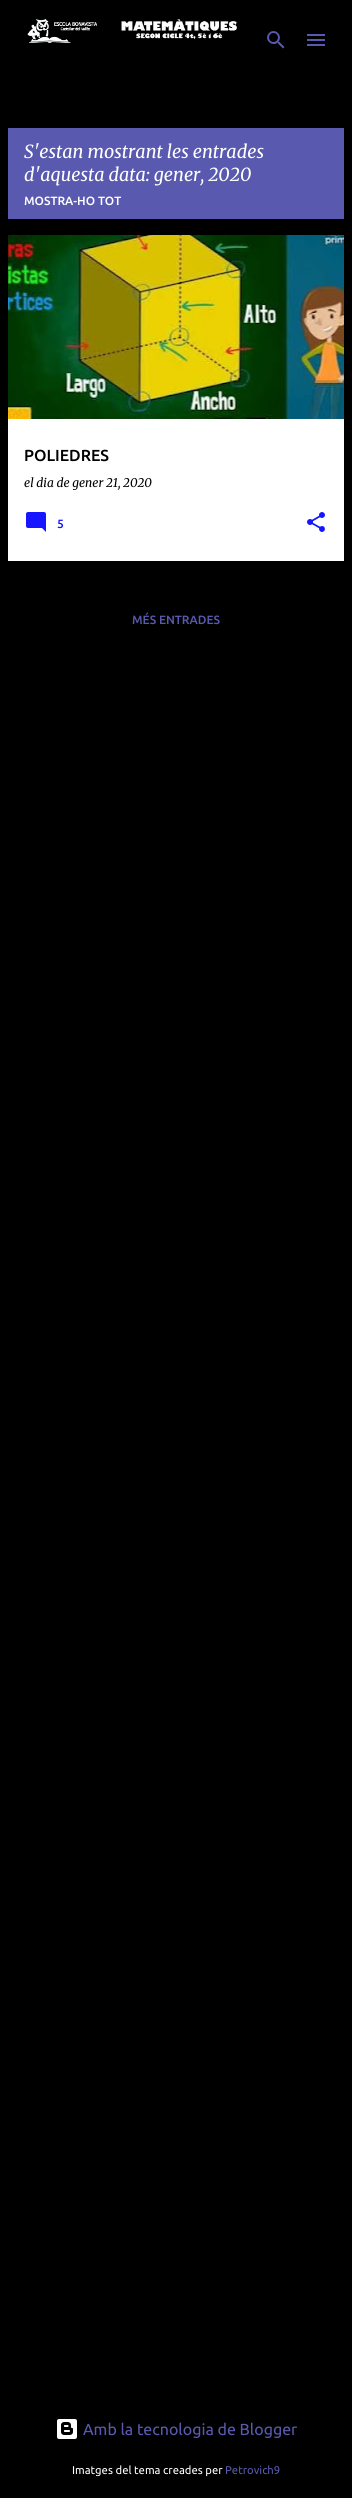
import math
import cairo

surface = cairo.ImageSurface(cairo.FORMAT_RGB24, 352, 2498)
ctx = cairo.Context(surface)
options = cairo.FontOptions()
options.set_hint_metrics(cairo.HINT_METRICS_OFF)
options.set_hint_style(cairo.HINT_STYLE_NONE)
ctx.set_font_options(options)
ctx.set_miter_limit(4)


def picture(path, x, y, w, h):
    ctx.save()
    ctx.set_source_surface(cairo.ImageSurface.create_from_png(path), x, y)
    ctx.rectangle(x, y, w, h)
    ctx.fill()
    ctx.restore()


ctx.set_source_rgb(0, 0, 0)
ctx.paint()
picture("img1.png", 27, 19, 210, 25)
picture("img2.png", 267, 31, 18, 18)
picture("img3.png", 307, 34, 18, 12)
ctx.set_source_rgb(0.349, 0.349, 0.686)
ctx.rectangle(8, 128, 336, 91)
ctx.fill()
ctx.select_font_face("Merriweather", cairo.FONT_SLANT_ITALIC)
ctx.set_font_size(18)
ctx.set_source_rgb(1, 1, 1)
ctx.move_to(24, 158)
ctx.show_text("S'estan mostrant les entrades")
ctx.move_to(24, 181)
ctx.show_text("d'aquesta data: gener, 2020")
ctx.select_font_face("Ubuntu Medium")
ctx.set_font_size(12)
ctx.move_to(24, 205)
ctx.show_text("MOSTRA-HO TOT")
ctx.rectangle(8, 419, 336, 142)
ctx.fill()
picture("img4.png", 8, 235, 336, 184)
ctx.set_font_size(16)
ctx.set_source_rgb(0, 0, 0)
ctx.move_to(24, 461)
ctx.show_text("POLIEDRES")
ctx.select_font_face("Merriweather", cairo.FONT_SLANT_ITALIC)
ctx.set_font_size(12)
ctx.move_to(24, 487)
ctx.show_text("el dia de gener 21, 2020")
picture("img5.png", 26, 512, 20, 20)
ctx.select_font_face("Ubuntu Medium")
ctx.set_source_rgb(0.082, 0.082, 1)
ctx.move_to(57, 528)
ctx.show_text("5")
picture("img6.png", 307, 512, 18, 20)
ctx.set_source_rgb(0.349, 0.349, 0.686)
ctx.move_to(132, 624)
ctx.show_text("MÉS ENTRADES")
picture("img7.png", 57, 2419, 20, 20)
ctx.select_font_face("Ubuntu")
ctx.set_font_size(16)
ctx.move_to(83, 2435)
ctx.show_text("Amb la tecnologia de Blogger")
ctx.set_font_size(11.25)
ctx.set_source_rgb(1, 1, 1)
ctx.move_to(72, 2474)
ctx.show_text("Imatges del tema creades per")
ctx.set_source_rgb(0.349, 0.349, 0.686)
ctx.move_to(225, 2474)
ctx.show_text("Petrovich9")
surface.write_to_png("page.png")
